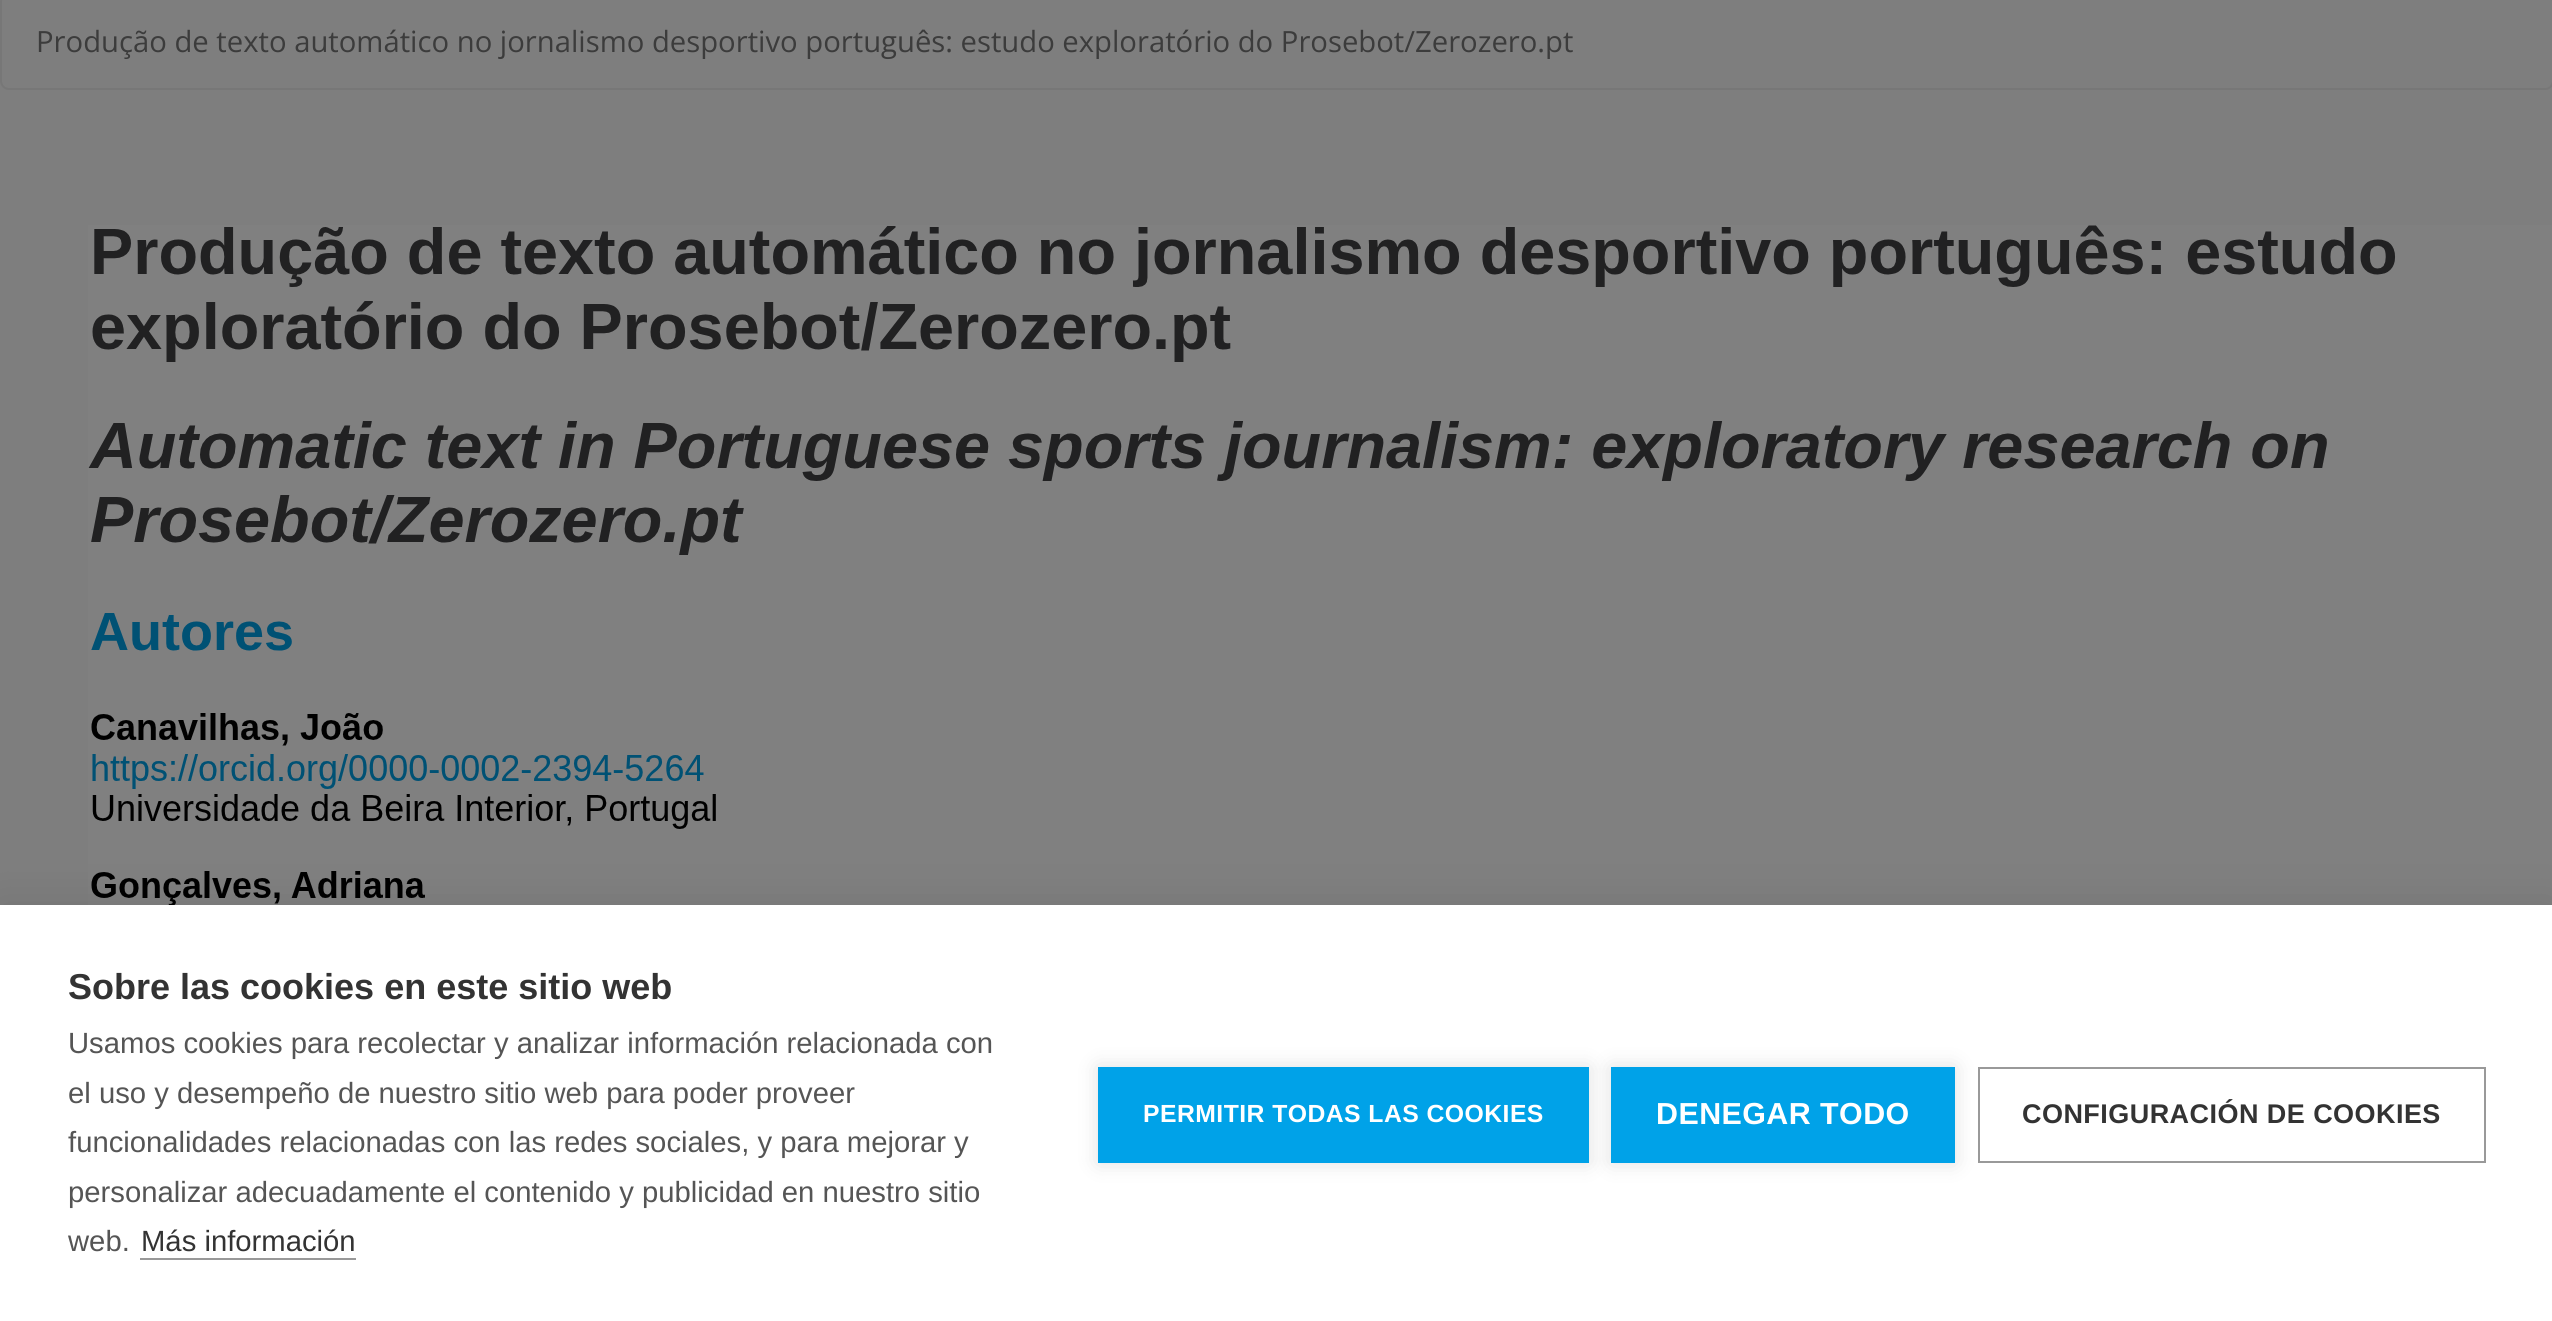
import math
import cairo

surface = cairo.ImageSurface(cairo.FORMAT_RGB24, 2552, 1321)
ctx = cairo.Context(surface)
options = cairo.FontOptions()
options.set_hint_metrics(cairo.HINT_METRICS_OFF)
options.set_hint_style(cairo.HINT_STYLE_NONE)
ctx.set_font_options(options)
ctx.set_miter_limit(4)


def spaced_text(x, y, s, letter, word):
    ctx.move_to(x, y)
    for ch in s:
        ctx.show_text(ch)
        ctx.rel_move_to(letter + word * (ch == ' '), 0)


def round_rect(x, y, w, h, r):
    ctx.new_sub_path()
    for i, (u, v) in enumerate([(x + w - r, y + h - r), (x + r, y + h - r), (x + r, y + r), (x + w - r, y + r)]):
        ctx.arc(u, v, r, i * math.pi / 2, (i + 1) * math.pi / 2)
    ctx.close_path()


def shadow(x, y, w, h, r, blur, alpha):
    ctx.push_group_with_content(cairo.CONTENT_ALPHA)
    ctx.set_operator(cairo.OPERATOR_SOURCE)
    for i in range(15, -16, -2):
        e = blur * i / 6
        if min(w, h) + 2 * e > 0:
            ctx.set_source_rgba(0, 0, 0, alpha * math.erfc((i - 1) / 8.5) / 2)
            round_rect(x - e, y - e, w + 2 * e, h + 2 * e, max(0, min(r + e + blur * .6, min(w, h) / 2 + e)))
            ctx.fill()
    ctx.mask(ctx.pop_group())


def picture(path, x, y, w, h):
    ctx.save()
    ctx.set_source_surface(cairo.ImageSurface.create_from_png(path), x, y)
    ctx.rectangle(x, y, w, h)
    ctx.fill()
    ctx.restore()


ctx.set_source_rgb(0.494, 0.494, 0.494)
ctx.paint()
round_rect(1, -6, 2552, 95, 8)
ctx.set_source_rgb(0.467, 0.467, 0.467)
ctx.stroke()
ctx.select_font_face("Open Sans")
ctx.set_font_size(29.25)
ctx.set_source_rgb(0.235, 0.235, 0.235)
ctx.move_to(36, 52)
ctx.show_text("Produção de texto automático no jornalismo desportivo português: estudo exploratório do Prosebot/Zerozero.pt")
picture("img1.png", 88, 225, 2464, 680)
ctx.set_source_rgb(0, 0, 0)
shadow(0, 905, 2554, 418, 0, 22.5, 0.1)
ctx.set_source_rgb(1, 1, 1)
ctx.rectangle(0, 905, 2552, 416)
ctx.fill()
ctx.select_font_face("Liberation Sans", cairo.FONT_SLANT_NORMAL, cairo.FONT_WEIGHT_BOLD)
ctx.set_font_size(36)
ctx.set_source_rgb(0.2, 0.2, 0.2)
ctx.move_to(68, 999)
ctx.show_text("Sobre las cookies en este sitio web")
ctx.select_font_face("Liberation Sans")
ctx.set_font_size(29.25)
ctx.set_source_rgb(0.333, 0.333, 0.333)
ctx.move_to(68, 1053)
ctx.show_text("Usamos cookies para recolectar y analizar información relacionada con")
ctx.move_to(68, 1103)
ctx.show_text("el uso y desempeño de nuestro sitio web para poder proveer")
ctx.move_to(68, 1152)
ctx.show_text("funcionalidades relacionadas con las redes sociales, y para mejorar y")
ctx.move_to(68, 1202)
ctx.show_text("personalizar adecuadamente el contenido y publicidad en nuestro sitio")
ctx.move_to(68, 1251)
ctx.show_text("web.")
ctx.set_source_rgb(0.2, 0.2, 0.2)
ctx.move_to(141, 1251)
ctx.show_text("Más información")
ctx.set_source_rgb(0.6, 0.6, 0.6)
ctx.rectangle(140, 1258, 216, 2)
ctx.fill()
ctx.set_source_rgb(0, 0, 0)
shadow(1098, 1067, 491, 96, 0, 11, 0.12)
ctx.set_source_rgb(0, 0.635, 0.91)
ctx.rectangle(1098, 1067, 491, 96)
ctx.fill()
ctx.select_font_face("Liberation Sans", cairo.FONT_SLANT_NORMAL, cairo.FONT_WEIGHT_BOLD)
ctx.set_font_size(24.75)
ctx.set_source_rgb(1, 1, 1)
spaced_text(1143, 1122, "PERMITIR TODAS LAS COOKIES", 0.45, 0)
ctx.set_source_rgb(0, 0, 0)
shadow(1611, 1067, 344, 96, 0, 11, 0.12)
ctx.set_source_rgb(0, 0.635, 0.91)
ctx.rectangle(1611, 1067, 344, 96)
ctx.fill()
ctx.set_font_size(30.4)
ctx.set_source_rgb(1, 1, 1)
spaced_text(1656, 1124, "DENEGAR TODO", 0.45, 0)
ctx.rectangle(1979, 1068, 506, 94)
ctx.set_source_rgb(0.6, 0.6, 0.6)
ctx.stroke()
ctx.set_font_size(27)
ctx.set_source_rgb(0.2, 0.2, 0.2)
spaced_text(2022, 1123, "CONFIGURACIÓN DE COOKIES", 0.45, 0)
surface.write_to_png("page.png")
